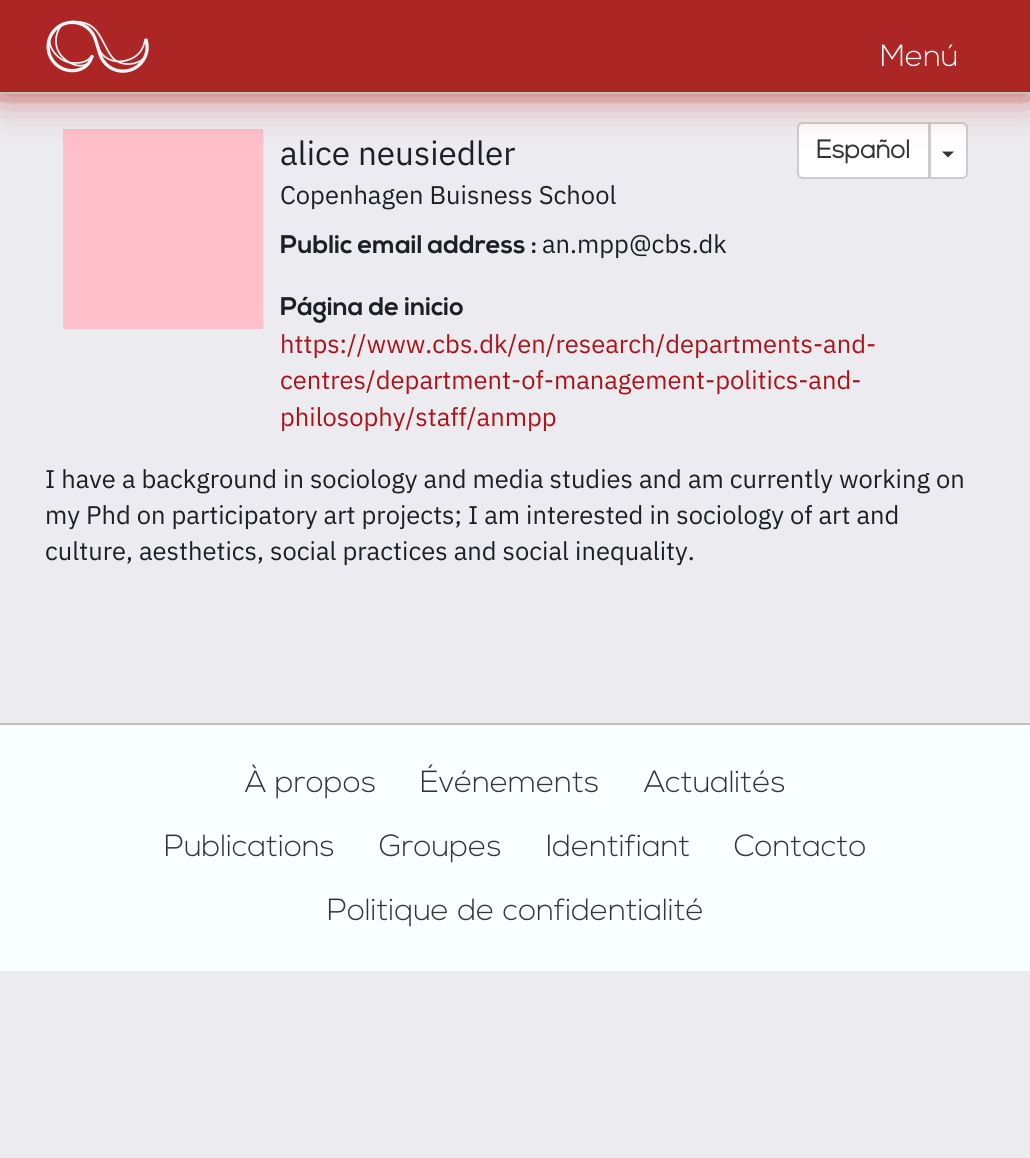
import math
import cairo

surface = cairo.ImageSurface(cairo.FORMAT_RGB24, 1030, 1158)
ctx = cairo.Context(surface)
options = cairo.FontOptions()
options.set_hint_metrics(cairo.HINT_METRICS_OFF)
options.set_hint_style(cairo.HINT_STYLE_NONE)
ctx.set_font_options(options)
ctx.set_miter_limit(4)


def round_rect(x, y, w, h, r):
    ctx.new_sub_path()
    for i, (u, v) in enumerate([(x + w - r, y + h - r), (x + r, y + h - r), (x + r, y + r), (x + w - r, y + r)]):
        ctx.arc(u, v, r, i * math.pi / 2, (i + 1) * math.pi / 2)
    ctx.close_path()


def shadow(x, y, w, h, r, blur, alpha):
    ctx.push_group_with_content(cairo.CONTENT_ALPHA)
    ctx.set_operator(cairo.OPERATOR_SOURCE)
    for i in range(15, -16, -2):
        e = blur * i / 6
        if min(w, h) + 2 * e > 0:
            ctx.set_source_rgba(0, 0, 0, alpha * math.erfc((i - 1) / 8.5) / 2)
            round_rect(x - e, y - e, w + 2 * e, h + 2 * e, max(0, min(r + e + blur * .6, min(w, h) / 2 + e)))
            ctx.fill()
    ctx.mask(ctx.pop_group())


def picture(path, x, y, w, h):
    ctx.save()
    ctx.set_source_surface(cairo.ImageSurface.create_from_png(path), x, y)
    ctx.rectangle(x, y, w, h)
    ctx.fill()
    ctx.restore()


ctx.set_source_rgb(0.922, 0.925, 0.941)
ctx.paint()
ctx.set_source_rgb(0.894, 0.82, 0.831)
ctx.new_path()
ctx.move_to(0, 93)
ctx.line_to(0, 102)
ctx.line_to(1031, 102)
ctx.line_to(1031, 9)
ctx.line_to(1030, 9)
ctx.line_to(1030, 93)
ctx.close_path()
ctx.fill()
ctx.set_source_rgb(1, 0.753, 0.796)
ctx.rectangle(63, 129, 200, 200)
ctx.fill()
ctx.set_source_rgb(1, 1, 1)
ctx.new_path()
ctx.move_to(803, 123)
ctx.line_to(929, 123)
ctx.line_to(929, 178)
ctx.line_to(803, 178)
ctx.curve_to(800, 178, 798, 176, 798, 173)
ctx.line_to(798, 128)
ctx.curve_to(798, 125, 800, 123, 803, 123)
ctx.close_path()
ctx.fill_preserve()
ctx.set_source_rgb(0.8, 0.8, 0.8)
ctx.stroke()
ctx.set_source_rgb(1, 1, 1)
ctx.new_path()
ctx.move_to(930, 123)
ctx.line_to(962, 123)
ctx.curve_to(965, 123, 967, 125, 967, 128)
ctx.line_to(967, 173)
ctx.curve_to(967, 176, 965, 178, 962, 178)
ctx.line_to(930, 178)
ctx.close_path()
ctx.fill_preserve()
ctx.set_source_rgb(0.8, 0.8, 0.8)
ctx.stroke()
ctx.set_source_rgb(0.2, 0.2, 0.2)
ctx.new_path()
ctx.move_to(942, 151.5)
ctx.line_to(954, 151.5)
ctx.line_to(948, 157.5)
ctx.close_path()
ctx.fill()
ctx.set_source_rgb(0.784, 0.392, 0.392)
shadow(0, 0, 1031, 93, 0, 22.5, 1)
ctx.set_source_rgb(0.678, 0.149, 0.149)
ctx.rectangle(0, 0, 1030, 92)
ctx.fill()
ctx.set_source_rgb(0.753, 0.753, 0.753)
ctx.rectangle(0, 92, 1030, 2)
ctx.fill()
picture("img1.png", 46, 20, 103, 53)
ctx.select_font_face("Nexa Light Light")
ctx.set_font_size(30.6)
ctx.set_source_rgb(0.98, 1, 1)
ctx.move_to(880, 66)
ctx.show_text("Menú")
ctx.select_font_face("IBM Plex Sans")
ctx.set_font_size(33.25)
ctx.set_source_rgb(0.114, 0.122, 0.149)
ctx.move_to(280, 165)
ctx.show_text("alice neusiedler")
ctx.set_font_size(25.5)
ctx.move_to(280, 204)
ctx.show_text("Copenhagen Buisness School")
ctx.select_font_face("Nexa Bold", cairo.FONT_SLANT_NORMAL, cairo.FONT_WEIGHT_BOLD)
ctx.move_to(280, 253)
ctx.show_text("Public email address :")
ctx.select_font_face("IBM Plex Sans")
ctx.move_to(542, 253)
ctx.show_text("an.mpp@cbs.dk")
ctx.select_font_face("Nexa Bold", cairo.FONT_SLANT_NORMAL, cairo.FONT_WEIGHT_BOLD)
ctx.move_to(280, 315)
ctx.show_text("Página de inicio")
ctx.select_font_face("IBM Plex Sans")
ctx.set_source_rgb(0.663, 0.078, 0.098)
ctx.move_to(280, 353)
ctx.show_text("https://www.cbs.dk/en/research/departments-and-")
ctx.move_to(280, 389)
ctx.show_text("centres/department-of-management-politics-and-")
ctx.move_to(280, 426)
ctx.show_text("philosophy/staff/anmpp")
ctx.set_source_rgb(0.114, 0.122, 0.149)
ctx.move_to(45, 488)
ctx.show_text("I have a background in sociology and media studies and am currently working on")
ctx.move_to(45, 524)
ctx.show_text("my Phd on participatory art projects; I am interested in sociology of art and")
ctx.move_to(45, 560)
ctx.show_text("culture, aesthetics, social practices and social inequality.")
ctx.select_font_face("Nexa Light", cairo.FONT_SLANT_NORMAL, cairo.FONT_WEIGHT_BOLD)
ctx.set_source_rgb(0.2, 0.2, 0.2)
ctx.move_to(816, 158)
ctx.show_text("Español")
ctx.set_source_rgb(0.98, 1, 1)
ctx.rectangle(0, 725, 1030, 246)
ctx.fill()
ctx.set_source_rgb(0.753, 0.753, 0.753)
ctx.rectangle(0, 723, 1030, 2)
ctx.fill()
ctx.select_font_face("Nexa Light Light")
ctx.set_font_size(30.6)
ctx.set_source_rgb(0.2, 0.2, 0.2)
ctx.move_to(245, 792)
ctx.show_text("À propos")
ctx.move_to(420, 792)
ctx.show_text("Événements")
ctx.move_to(644, 792)
ctx.show_text("Actualités")
ctx.move_to(164, 856)
ctx.show_text("Publications")
ctx.move_to(379, 856)
ctx.show_text("Groupes")
ctx.move_to(546, 856)
ctx.show_text("Identifiant")
ctx.move_to(734, 856)
ctx.show_text("Contacto")
ctx.move_to(327, 920)
ctx.show_text("Politique de confidentialité")
surface.write_to_png("page.png")
